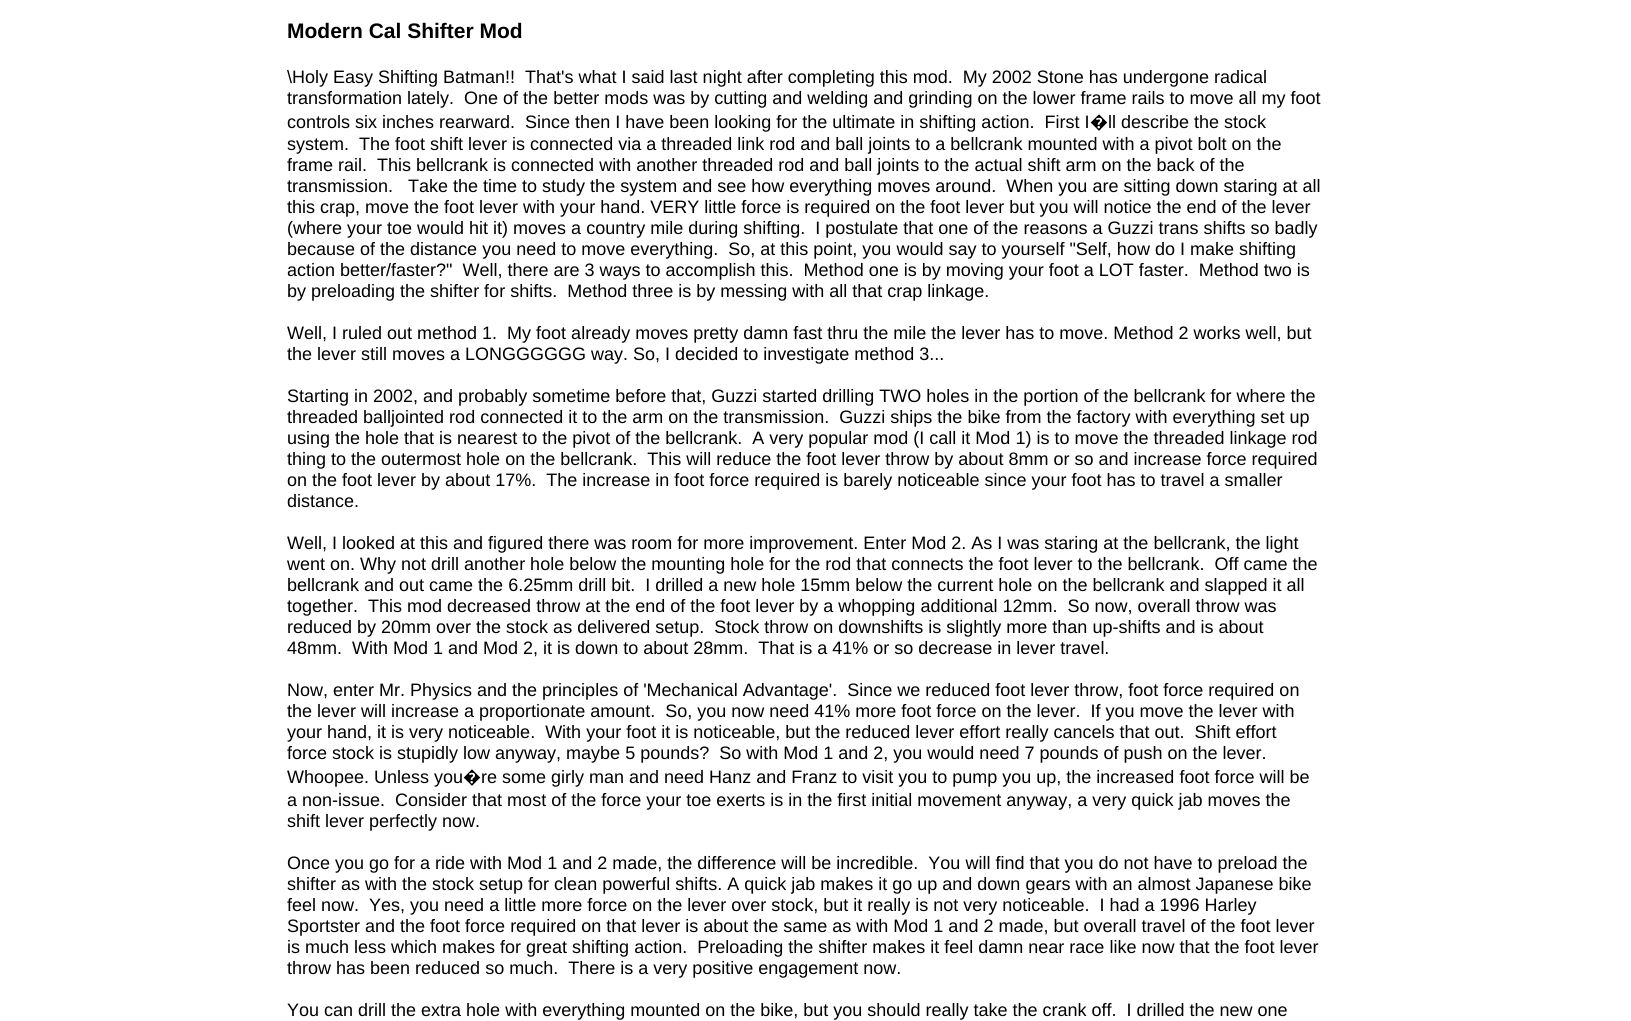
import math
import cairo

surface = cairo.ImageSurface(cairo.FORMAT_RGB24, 1631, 1021)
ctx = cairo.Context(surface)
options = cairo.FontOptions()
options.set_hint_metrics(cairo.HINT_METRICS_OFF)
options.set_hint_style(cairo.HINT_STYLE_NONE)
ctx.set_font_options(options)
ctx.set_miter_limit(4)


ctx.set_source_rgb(1, 1, 1)
ctx.paint()
ctx.select_font_face("Liberation Sans", cairo.FONT_SLANT_NORMAL, cairo.FONT_WEIGHT_BOLD)
ctx.set_font_size(21)
ctx.set_source_rgb(0, 0, 0)
ctx.move_to(287, 38)
ctx.show_text("Modern Cal Shifter Mod")
ctx.select_font_face("Liberation Sans")
ctx.set_font_size(18)
ctx.move_to(287, 83)
ctx.show_text("\\Holy Easy Shifting Batman!!  That's what I said last night after completing this mod.  My 2002 Stone has undergone radical")
ctx.move_to(287, 104)
ctx.show_text("transformation lately.  One of the better mods was by cutting and welding and grinding on the lower frame rails to move all my foot")
ctx.move_to(287, 128)
ctx.show_text("controls six inches rearward.  Since then I have been looking for the ultimate in shifting action.  First I")
ctx.select_font_face("Noto Sans")
ctx.move_to(1090, 128)
ctx.show_text("�")
ctx.select_font_face("Liberation Sans")
ctx.move_to(1108, 128)
ctx.show_text("ll describe the stock")
ctx.move_to(287, 150)
ctx.show_text("system.  The foot shift lever is connected via a threaded link rod and ball joints to a bellcrank mounted with a pivot bolt on the")
ctx.move_to(287, 171)
ctx.show_text("frame rail.  This bellcrank is connected with another threaded rod and ball joints to the actual shift arm on the back of the")
ctx.move_to(287, 192)
ctx.show_text("transmission.   Take the time to study the system and see how everything moves around.  When you are sitting down staring at all")
ctx.move_to(287, 213)
ctx.show_text("this crap, move the foot lever with your hand. VERY little force is required on the foot lever but you will notice the end of the lever")
ctx.move_to(287, 234)
ctx.show_text("(where your toe would hit it) moves a country mile during shifting.  I postulate that one of the reasons a Guzzi trans shifts so badly")
ctx.move_to(287, 255)
ctx.show_text("because of the distance you need to move everything.  So, at this point, you would say to yourself \"Self, how do I make shifting")
ctx.move_to(287, 276)
ctx.show_text("action better/faster?\"  Well, there are 3 ways to accomplish this.  Method one is by moving your foot a LOT faster.  Method two is")
ctx.move_to(287, 297)
ctx.show_text("by preloading the shifter for shifts.  Method three is by messing with all that crap linkage.")
ctx.move_to(287, 339)
ctx.show_text("Well, I ruled out method 1.  My foot already moves pretty damn fast thru the mile the lever has to move. Method 2 works well, but")
ctx.move_to(287, 360)
ctx.show_text("the lever still moves a LONGGGGGG way. So, I decided to investigate method 3...")
ctx.move_to(287, 402)
ctx.show_text("Starting in 2002, and probably sometime before that, Guzzi started drilling TWO holes in the portion of the bellcrank for where the")
ctx.move_to(287, 423)
ctx.show_text("threaded balljointed rod connected it to the arm on the transmission.  Guzzi ships the bike from the factory with everything set up")
ctx.move_to(287, 444)
ctx.show_text("using the hole that is nearest to the pivot of the bellcrank.  A very popular mod (I call it Mod 1) is to move the threaded linkage rod")
ctx.move_to(287, 465)
ctx.show_text("thing to the outermost hole on the bellcrank.  This will reduce the foot lever throw by about 8mm or so and increase force required")
ctx.move_to(287, 486)
ctx.show_text("on the foot lever by about 17%.  The increase in foot force required is barely noticeable since your foot has to travel a smaller")
ctx.move_to(287, 507)
ctx.show_text("distance.")
ctx.move_to(287, 549)
ctx.show_text("Well, I looked at this and figured there was room for more improvement. Enter Mod 2. As I was staring at the bellcrank, the light")
ctx.move_to(287, 570)
ctx.show_text("went on. Why not drill another hole below the mounting hole for the rod that connects the foot lever to the bellcrank.  Off came the")
ctx.move_to(287, 591)
ctx.show_text("bellcrank and out came the 6.25mm drill bit.  I drilled a new hole 15mm below the current hole on the bellcrank and slapped it all")
ctx.move_to(287, 612)
ctx.show_text("together.  This mod decreased throw at the end of the foot lever by a whopping additional 12mm.  So now, overall throw was")
ctx.move_to(287, 633)
ctx.show_text("reduced by 20mm over the stock as delivered setup.  Stock throw on downshifts is slightly more than up-shifts and is about")
ctx.move_to(287, 654)
ctx.show_text("48mm.  With Mod 1 and Mod 2, it is down to about 28mm.  That is a 41% or so decrease in lever travel.")
ctx.move_to(287, 696)
ctx.show_text("Now, enter Mr. Physics and the principles of 'Mechanical Advantage'.  Since we reduced foot lever throw, foot force required on")
ctx.move_to(287, 717)
ctx.show_text("the lever will increase a proportionate amount.  So, you now need 41% more foot force on the lever.  If you move the lever with")
ctx.move_to(287, 738)
ctx.show_text("your hand, it is very noticeable.  With your foot it is noticeable, but the reduced lever effort really cancels that out.  Shift effort")
ctx.move_to(287, 759)
ctx.show_text("force stock is stupidly low anyway, maybe 5 pounds?  So with Mod 1 and 2, you would need 7 pounds of push on the lever.")
ctx.move_to(287, 783)
ctx.show_text("Whoopee. Unless you")
ctx.select_font_face("Noto Sans")
ctx.move_to(463, 783)
ctx.show_text("�")
ctx.select_font_face("Liberation Sans")
ctx.move_to(481, 783)
ctx.show_text("re some girly man and need Hanz and Franz to visit you to pump you up, the increased foot force will be")
ctx.move_to(287, 806)
ctx.show_text("a non-issue.  Consider that most of the force your toe exerts is in the first initial movement anyway, a very quick jab moves the")
ctx.move_to(287, 827)
ctx.show_text("shift lever perfectly now.")
ctx.move_to(287, 869)
ctx.show_text("Once you go for a ride with Mod 1 and 2 made, the difference will be incredible.  You will find that you do not have to preload the")
ctx.move_to(287, 890)
ctx.show_text("shifter as with the stock setup for clean powerful shifts. A quick jab makes it go up and down gears with an almost Japanese bike")
ctx.move_to(287, 911)
ctx.show_text("feel now.  Yes, you need a little more force on the lever over stock, but it really is not very noticeable.  I had a 1996 Harley")
ctx.move_to(287, 932)
ctx.show_text("Sportster and the foot force required on that lever is about the same as with Mod 1 and 2 made, but overall travel of the foot lever")
ctx.move_to(287, 953)
ctx.show_text("is much less which makes for great shifting action.  Preloading the shifter makes it feel damn near race like now that the foot lever")
ctx.move_to(287, 974)
ctx.show_text("throw has been reduced so much.  There is a very positive engagement now.")
ctx.move_to(287, 1016)
ctx.show_text("You can drill the extra hole with everything mounted on the bike, but you should really take the crank off.  I drilled the new one")
surface.write_to_png("page.png")
